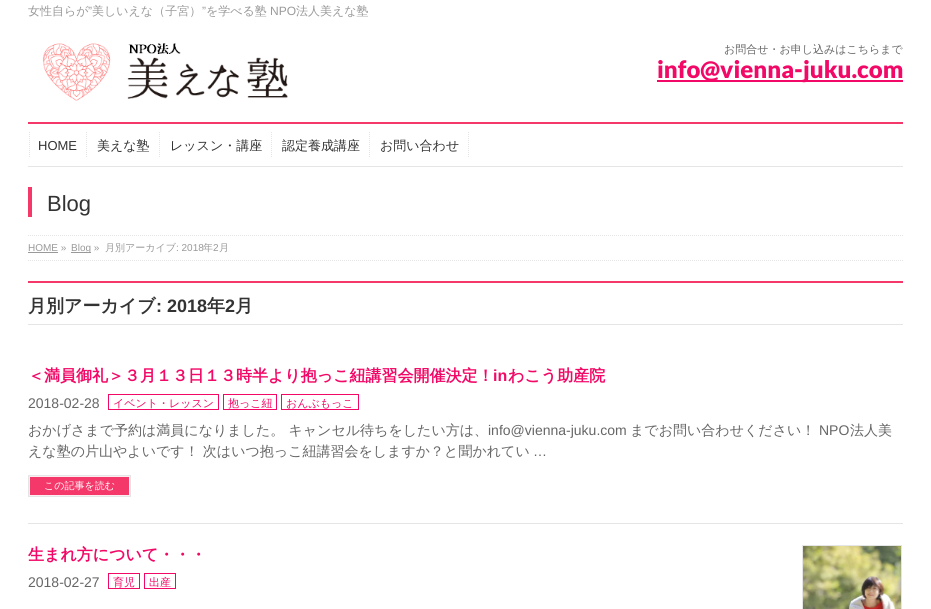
import math
import cairo

surface = cairo.ImageSurface(cairo.FORMAT_RGB24, 931, 609)
ctx = cairo.Context(surface)
options = cairo.FontOptions()
options.set_hint_metrics(cairo.HINT_METRICS_OFF)
options.set_hint_style(cairo.HINT_STYLE_NONE)
ctx.set_font_options(options)
ctx.set_miter_limit(4)


def picture(path, x, y, w, h):
    ctx.save()
    ctx.set_source_surface(cairo.ImageSurface.create_from_png(path), x, y)
    ctx.rectangle(x, y, w, h)
    ctx.fill()
    ctx.restore()


ctx.set_source_rgb(1, 1, 1)
ctx.paint()
ctx.select_font_face("WenQuanYi Zen Hei Medium")
ctx.set_font_size(12)
ctx.set_source_rgb(0.6, 0.6, 0.6)
ctx.move_to(28, 15)
ctx.show_text("女性自らが")
ctx.select_font_face("Liberation Sans")
ctx.move_to(88, 15)
ctx.show_text("”")
ctx.select_font_face("WenQuanYi Zen Hei Medium")
ctx.move_to(92, 15)
ctx.show_text("美しいえな（子宮）")
ctx.select_font_face("Liberation Sans")
ctx.move_to(202, 15)
ctx.show_text("”")
ctx.select_font_face("WenQuanYi Zen Hei Medium")
ctx.move_to(206, 15)
ctx.show_text("を学べる塾")
ctx.select_font_face("Liberation Sans")
ctx.move_to(270, 15)
ctx.show_text("NPO")
ctx.select_font_face("WenQuanYi Zen Hei Medium")
ctx.move_to(296, 15)
ctx.show_text("法人美えな塾")
picture("img1.png", 42, 43, 246, 58)
ctx.set_font_size(11)
ctx.set_source_rgb(0.4, 0.4, 0.4)
ctx.move_to(724, 53)
ctx.show_text("お問合せ・お申し込みはこちらまで")
ctx.set_source_rgb(0.949, 0.035, 0.4)
ctx.rectangle(657, 80, 246, 2)
ctx.fill()
ctx.select_font_face("Lato Black")
ctx.set_font_size(24)
ctx.move_to(657, 78)
ctx.show_text("info@vienna-juku.com")
ctx.set_source_rgb(0.957, 0.22, 0.416)
ctx.rectangle(28, 122, 875, 2)
ctx.fill()
ctx.set_source_rgb(0.898, 0.898, 0.898)
ctx.rectangle(28, 166, 875, 1)
ctx.fill()
ctx.new_path()
ctx.move_to(29.5, 132)
ctx.line_to(29.5, 158)
ctx.set_line_width(1)
ctx.set_dash([1, 1])
ctx.stroke()
ctx.select_font_face("Liberation Sans")
ctx.set_font_size(13)
ctx.set_source_rgb(0.2, 0.2, 0.2)
ctx.move_to(38, 150)
ctx.show_text("HOME")
ctx.new_path()
ctx.move_to(86.5, 132)
ctx.line_to(86.5, 158)
ctx.set_source_rgb(0.898, 0.898, 0.898)
ctx.stroke()
ctx.select_font_face("WenQuanYi Zen Hei Medium")
ctx.set_source_rgb(0.2, 0.2, 0.2)
ctx.move_to(97, 150)
ctx.show_text("美えな塾")
ctx.new_path()
ctx.move_to(159.5, 132)
ctx.line_to(159.5, 158)
ctx.set_source_rgb(0.898, 0.898, 0.898)
ctx.stroke()
ctx.set_source_rgb(0.2, 0.2, 0.2)
ctx.move_to(170, 150)
ctx.show_text("レッスン・講座")
ctx.new_path()
ctx.move_to(271.5, 132)
ctx.line_to(271.5, 158)
ctx.set_source_rgb(0.898, 0.898, 0.898)
ctx.stroke()
ctx.set_source_rgb(0.2, 0.2, 0.2)
ctx.move_to(282, 150)
ctx.show_text("認定養成講座")
ctx.new_path()
ctx.move_to(369.5, 132)
ctx.line_to(369.5, 158)
ctx.set_source_rgb(0.898, 0.898, 0.898)
ctx.stroke()
ctx.set_source_rgb(0.2, 0.2, 0.2)
ctx.move_to(380, 150)
ctx.show_text("お問い合わせ")
ctx.new_path()
ctx.move_to(468.5, 132)
ctx.line_to(468.5, 158)
ctx.set_source_rgb(0.898, 0.898, 0.898)
ctx.stroke()
ctx.set_source_rgb(0.957, 0.22, 0.416)
ctx.rectangle(28, 187, 4, 30)
ctx.fill()
ctx.select_font_face("Liberation Sans")
ctx.set_font_size(22)
ctx.set_source_rgb(0.2, 0.2, 0.2)
ctx.move_to(47, 211)
ctx.show_text("Blog")
ctx.new_path()
ctx.move_to(28, 235.5)
ctx.line_to(903, 235.5)
ctx.set_source_rgb(0.898, 0.898, 0.898)
ctx.stroke()
ctx.new_path()
ctx.move_to(28, 260.5)
ctx.line_to(903, 260.5)
ctx.stroke()
ctx.set_font_size(10)
ctx.set_source_rgb(0.6, 0.6, 0.6)
ctx.move_to(28, 251)
ctx.show_text("HOME »")
ctx.rectangle(28, 252, 30, 1)
ctx.fill()
ctx.rectangle(71, 252, 20, 1)
ctx.fill()
ctx.move_to(71, 251)
ctx.show_text("Blog »")
ctx.select_font_face("WenQuanYi Zen Hei Medium")
ctx.move_to(105, 251)
ctx.show_text("月別アーカイブ")
ctx.select_font_face("Liberation Sans")
ctx.move_to(176, 251)
ctx.show_text(": 2018")
ctx.select_font_face("WenQuanYi Zen Hei Medium")
ctx.move_to(203, 251)
ctx.show_text("年")
ctx.select_font_face("Liberation Sans")
ctx.move_to(213, 251)
ctx.show_text("2")
ctx.select_font_face("WenQuanYi Zen Hei Medium")
ctx.move_to(219, 251)
ctx.show_text("月")
ctx.set_source_rgb(0.957, 0.22, 0.416)
ctx.rectangle(28, 281, 875, 2)
ctx.fill()
ctx.set_source_rgb(0.898, 0.898, 0.898)
ctx.rectangle(28, 324, 875, 1)
ctx.fill()
ctx.select_font_face("WenQuanYi Zen Hei", cairo.FONT_SLANT_NORMAL, cairo.FONT_WEIGHT_BOLD)
ctx.set_font_size(18)
ctx.set_source_rgb(0.2, 0.2, 0.2)
ctx.move_to(28, 312)
ctx.show_text("月別アーカイブ")
ctx.select_font_face("Liberation Sans", cairo.FONT_SLANT_NORMAL, cairo.FONT_WEIGHT_BOLD)
ctx.move_to(156, 312)
ctx.show_text(": 2018")
ctx.select_font_face("WenQuanYi Zen Hei", cairo.FONT_SLANT_NORMAL, cairo.FONT_WEIGHT_BOLD)
ctx.move_to(207, 312)
ctx.show_text("年")
ctx.select_font_face("Liberation Sans", cairo.FONT_SLANT_NORMAL, cairo.FONT_WEIGHT_BOLD)
ctx.move_to(225, 312)
ctx.show_text("2")
ctx.select_font_face("WenQuanYi Zen Hei", cairo.FONT_SLANT_NORMAL, cairo.FONT_WEIGHT_BOLD)
ctx.move_to(235, 312)
ctx.show_text("月")
ctx.set_source_rgb(0.898, 0.898, 0.898)
ctx.rectangle(28, 523, 875, 1)
ctx.fill()
ctx.set_font_size(16)
ctx.set_source_rgb(0.949, 0.035, 0.4)
ctx.move_to(28, 381)
ctx.show_text("＜満員御礼＞３月１３日１３時半より抱っこ紐講習会開催決定！")
ctx.select_font_face("Liberation Sans", cairo.FONT_SLANT_NORMAL, cairo.FONT_WEIGHT_BOLD)
ctx.move_to(493, 381)
ctx.show_text("in")
ctx.select_font_face("WenQuanYi Zen Hei", cairo.FONT_SLANT_NORMAL, cairo.FONT_WEIGHT_BOLD)
ctx.move_to(508, 381)
ctx.show_text("わこう助産院")
ctx.select_font_face("Liberation Sans")
ctx.set_font_size(14)
ctx.set_source_rgb(0.4, 0.4, 0.4)
ctx.move_to(28, 408)
ctx.show_text("2018-02-28")
ctx.rectangle(108.5, 394.5, 110, 15)
ctx.set_source_rgb(0.949, 0.035, 0.4)
ctx.set_dash([])
ctx.stroke()
ctx.select_font_face("WenQuanYi Zen Hei Medium")
ctx.set_font_size(11)
ctx.move_to(113, 407)
ctx.show_text("イベント・レッスン")
ctx.rectangle(223.5, 394.5, 53, 15)
ctx.stroke()
ctx.move_to(228, 407)
ctx.show_text("抱っこ紐")
ctx.rectangle(281.5, 394.5, 77, 15)
ctx.stroke()
ctx.move_to(286, 407)
ctx.show_text("おんぶもっこ")
ctx.set_font_size(14)
ctx.set_source_rgb(0.4, 0.4, 0.4)
ctx.move_to(28, 435)
ctx.show_text("おかげさまで予約は満員になりました。 キャンセル待ちをしたい方は、")
ctx.select_font_face("Liberation Sans")
ctx.move_to(488, 435)
ctx.show_text("info@vienna-juku.com")
ctx.select_font_face("WenQuanYi Zen Hei Medium")
ctx.move_to(630, 435)
ctx.show_text("までお問い合わせください！")
ctx.select_font_face("Liberation Sans")
ctx.move_to(819, 435)
ctx.show_text("NPO")
ctx.select_font_face("WenQuanYi Zen Hei Medium")
ctx.move_to(850, 435)
ctx.show_text("法人美")
ctx.move_to(28, 456)
ctx.show_text("えな塾の片山やよいです！ 次はいつ抱っこ紐講習会をしますか？と聞かれてい")
ctx.select_font_face("Liberation Sans")
ctx.move_to(533, 456)
ctx.show_text("…")
ctx.set_source_rgb(0.957, 0.22, 0.416)
ctx.rectangle(29.5, 476.5, 100, 19)
ctx.fill_preserve()
ctx.set_source_rgb(0.996, 0.922, 0.941)
ctx.stroke()
ctx.rectangle(28.5, 475.5, 102, 21)
ctx.set_source_rgb(0.898, 0.898, 0.898)
ctx.stroke()
ctx.select_font_face("WenQuanYi Zen Hei Medium")
ctx.set_font_size(10)
ctx.set_source_rgb(1, 1, 1)
ctx.move_to(44, 489)
ctx.show_text("この記事を読む")
ctx.select_font_face("WenQuanYi Zen Hei", cairo.FONT_SLANT_NORMAL, cairo.FONT_WEIGHT_BOLD)
ctx.set_font_size(16)
ctx.set_source_rgb(0.949, 0.035, 0.4)
ctx.move_to(28, 560)
ctx.show_text("生まれ方について・・・")
ctx.select_font_face("Liberation Sans")
ctx.set_font_size(14)
ctx.set_source_rgb(0.4, 0.4, 0.4)
ctx.move_to(28, 587)
ctx.show_text("2018-02-27")
ctx.rectangle(108.5, 573.5, 31, 15)
ctx.set_source_rgb(0.949, 0.035, 0.4)
ctx.stroke()
ctx.select_font_face("WenQuanYi Zen Hei Medium")
ctx.set_font_size(11)
ctx.move_to(113, 586)
ctx.show_text("育児")
ctx.rectangle(144.5, 573.5, 31, 15)
ctx.stroke()
ctx.move_to(149, 586)
ctx.show_text("出産")
ctx.rectangle(802.5, 545.5, 99, 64)
ctx.set_source_rgb(0.898, 0.898, 0.898)
ctx.stroke()
picture("img2.png", 803, 546, 98, 63)
surface.write_to_png("page.png")
